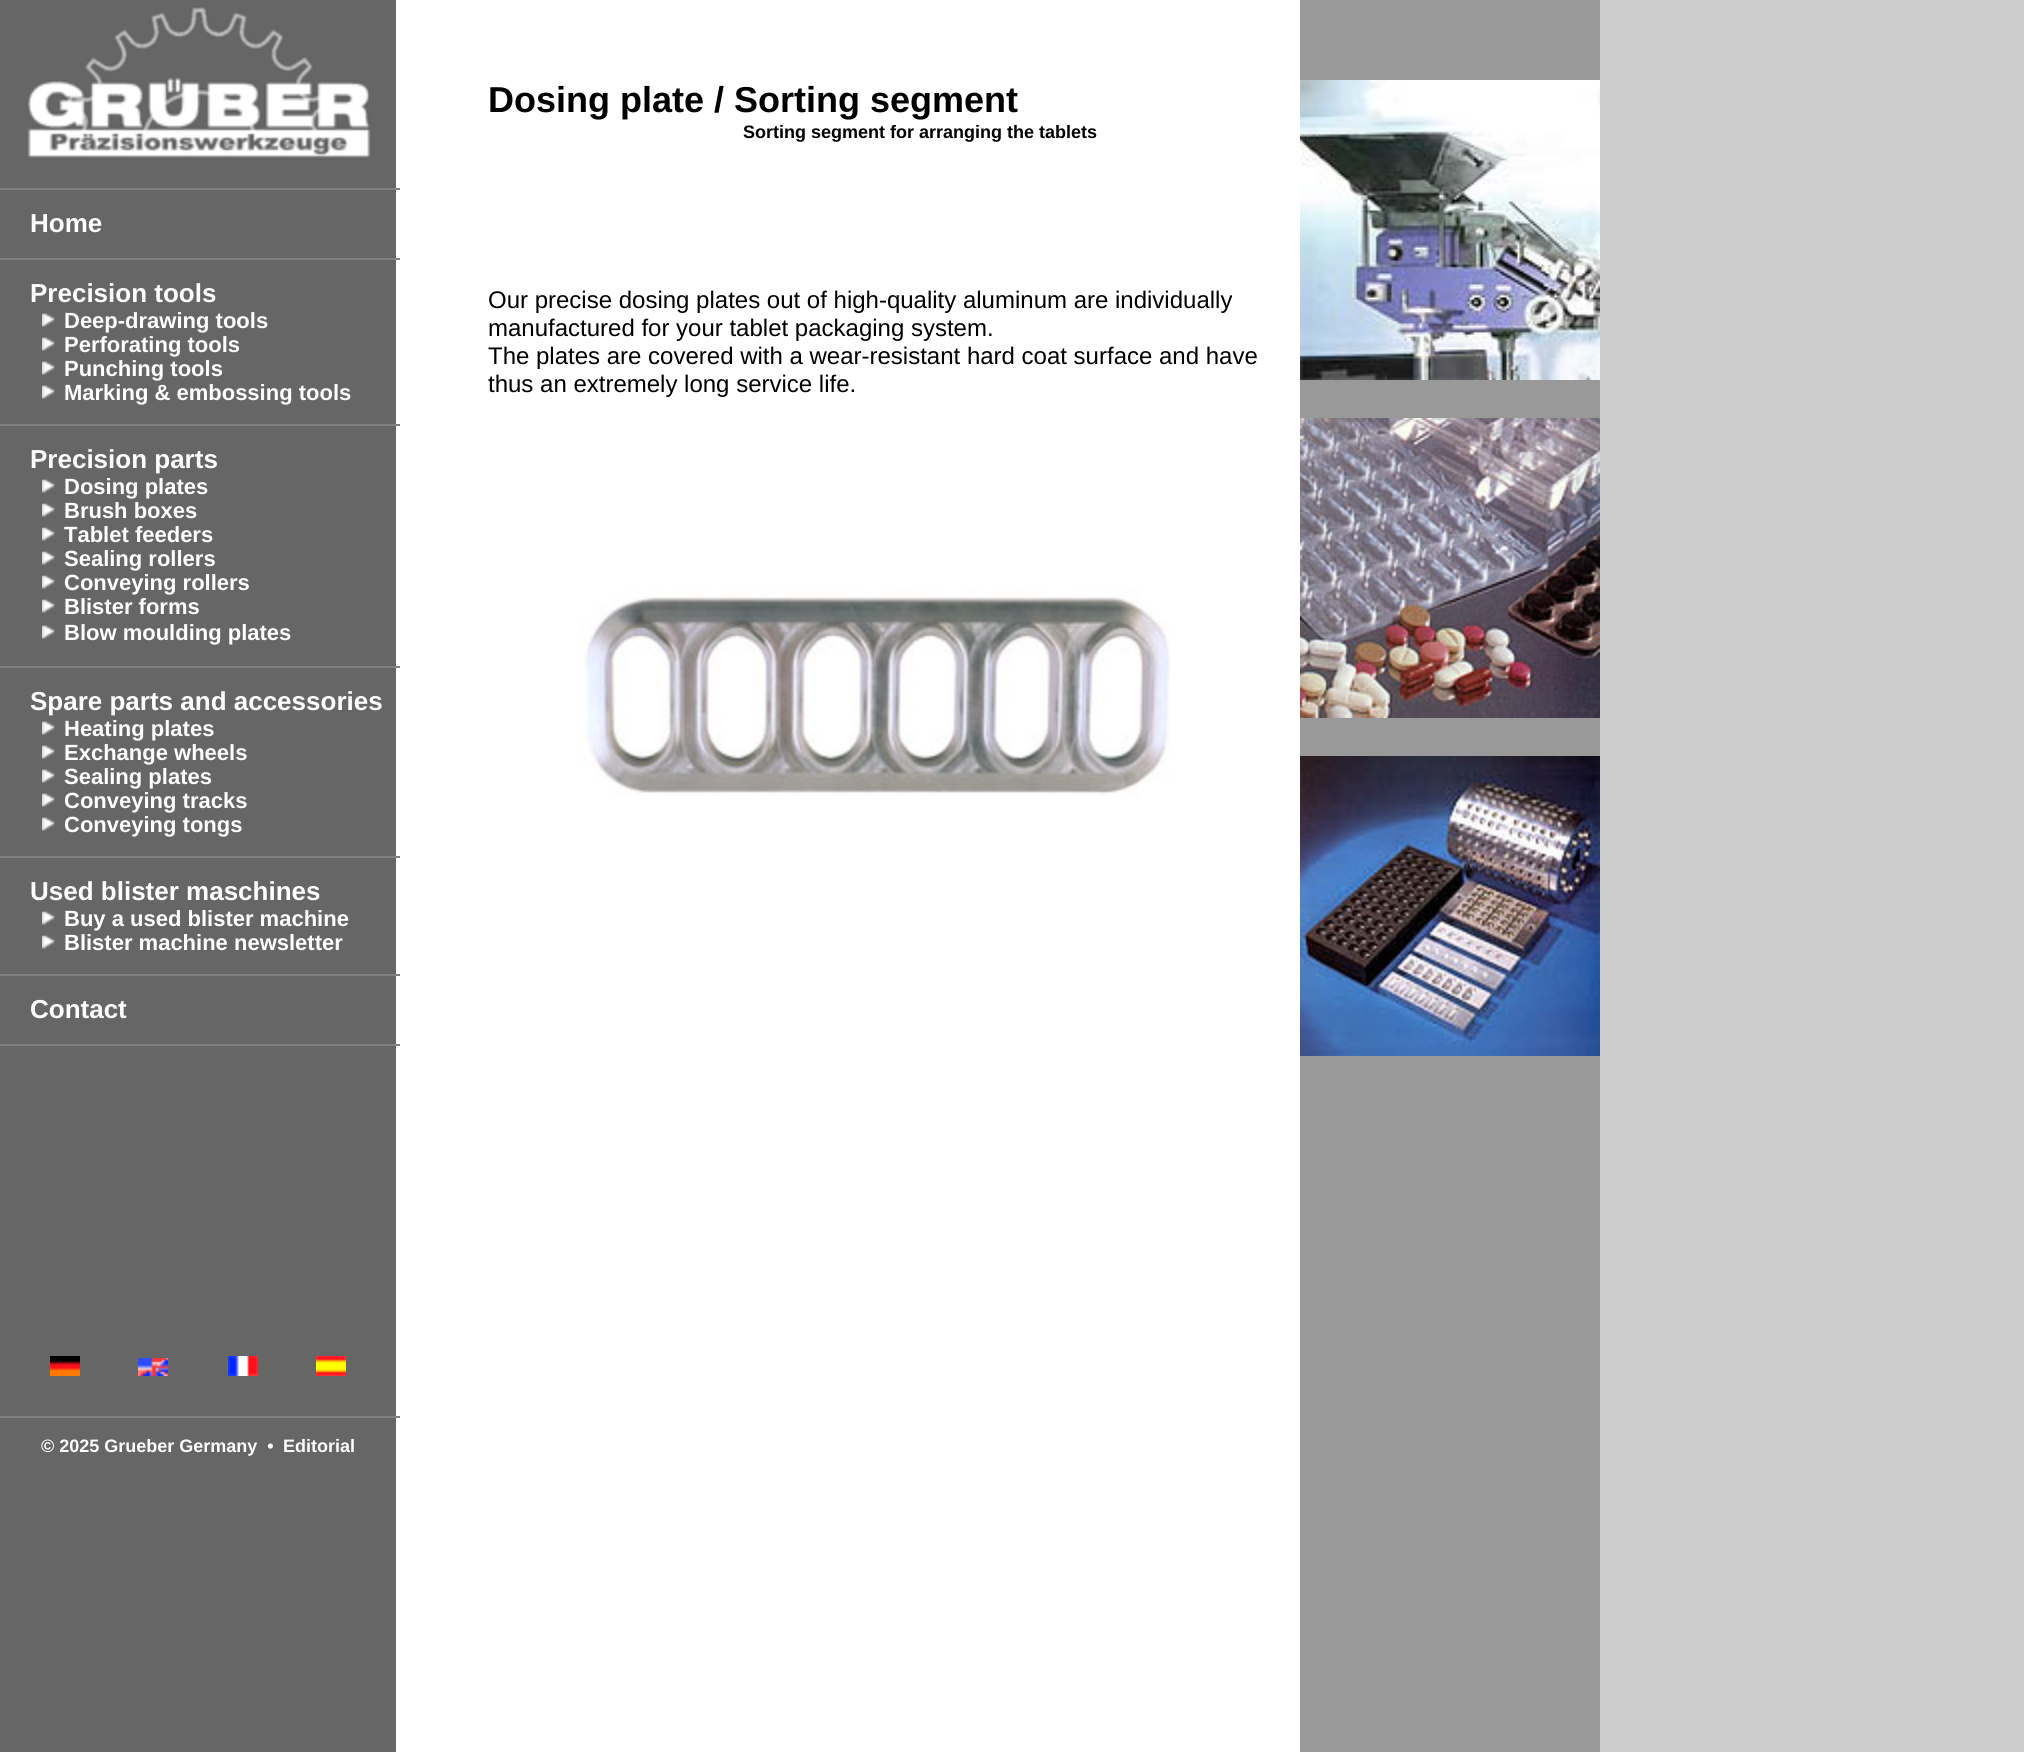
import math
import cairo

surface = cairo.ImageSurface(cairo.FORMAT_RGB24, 2024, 1752)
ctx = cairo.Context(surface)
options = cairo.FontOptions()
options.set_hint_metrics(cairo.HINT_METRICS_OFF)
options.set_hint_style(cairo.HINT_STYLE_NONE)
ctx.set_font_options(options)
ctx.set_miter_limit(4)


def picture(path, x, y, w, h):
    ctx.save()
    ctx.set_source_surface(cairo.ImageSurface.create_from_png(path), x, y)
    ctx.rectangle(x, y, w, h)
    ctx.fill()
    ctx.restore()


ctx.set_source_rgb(0.8, 0.8, 0.8)
ctx.paint()
ctx.set_source_rgb(0.4, 0.4, 0.4)
ctx.rectangle(0, 0, 396, 1752)
ctx.fill()
picture("img1.png", 26, 6, 346, 154)
ctx.set_source_rgb(1, 1, 1)
ctx.rectangle(396, 0, 904, 1752)
ctx.fill()
ctx.set_source_rgb(0.502, 0.502, 0.502)
ctx.rectangle(0, 188, 400, 2)
ctx.fill()
ctx.select_font_face("Liberation Sans", cairo.FONT_SLANT_NORMAL, cairo.FONT_WEIGHT_BOLD)
ctx.set_font_size(26)
ctx.set_source_rgb(1, 1, 1)
ctx.move_to(30, 232)
ctx.show_text("Home")
ctx.set_source_rgb(0.502, 0.502, 0.502)
ctx.rectangle(0, 258, 400, 2)
ctx.fill()
ctx.set_source_rgb(1, 1, 1)
ctx.move_to(30, 302)
ctx.show_text("Precision tools")
picture("img2.png", 42, 313, 13, 14)
ctx.set_font_size(22)
ctx.move_to(64, 328)
ctx.show_text("Deep-drawing tools")
picture("img2.png", 42, 337, 13, 14)
ctx.move_to(64, 352)
ctx.show_text("Perforating tools")
picture("img2.png", 42, 361, 13, 14)
ctx.move_to(64, 376)
ctx.show_text("Punching tools")
picture("img2.png", 42, 385, 13, 14)
ctx.move_to(64, 400)
ctx.show_text("Marking & embossing tools")
ctx.set_source_rgb(0.502, 0.502, 0.502)
ctx.rectangle(0, 424, 400, 2)
ctx.fill()
ctx.set_font_size(26)
ctx.set_source_rgb(1, 1, 1)
ctx.move_to(30, 468)
ctx.show_text("Precision parts")
picture("img2.png", 42, 479, 13, 14)
ctx.set_font_size(22)
ctx.move_to(64, 494)
ctx.show_text("Dosing plates")
picture("img2.png", 42, 503, 13, 14)
ctx.move_to(64, 518)
ctx.show_text("Brush boxes")
picture("img2.png", 42, 527, 13, 14)
ctx.move_to(64, 542)
ctx.show_text("Tablet feeders")
picture("img2.png", 42, 551, 13, 14)
ctx.move_to(64, 566)
ctx.show_text("Sealing rollers")
picture("img2.png", 42, 575, 13, 14)
ctx.move_to(64, 590)
ctx.show_text("Conveying rollers")
picture("img2.png", 42, 599, 13, 14)
ctx.move_to(64, 614)
ctx.show_text("Blister forms")
picture("img2.png", 42, 625, 13, 14)
ctx.move_to(64, 640)
ctx.show_text("Blow moulding plates")
ctx.set_source_rgb(0.502, 0.502, 0.502)
ctx.rectangle(0, 666, 400, 2)
ctx.fill()
ctx.set_font_size(26)
ctx.set_source_rgb(1, 1, 1)
ctx.move_to(30, 710)
ctx.show_text("Spare parts and accessories")
picture("img2.png", 42, 721, 13, 14)
ctx.set_font_size(22)
ctx.move_to(64, 736)
ctx.show_text("Heating plates")
picture("img2.png", 42, 745, 13, 14)
ctx.move_to(64, 760)
ctx.show_text("Exchange wheels")
picture("img2.png", 42, 769, 13, 14)
ctx.move_to(64, 784)
ctx.show_text("Sealing plates")
picture("img2.png", 42, 793, 13, 14)
ctx.move_to(64, 808)
ctx.show_text("Conveying tracks")
picture("img2.png", 42, 817, 13, 14)
ctx.move_to(64, 832)
ctx.show_text("Conveying tongs")
ctx.set_source_rgb(0.502, 0.502, 0.502)
ctx.rectangle(0, 856, 400, 2)
ctx.fill()
ctx.set_font_size(26)
ctx.set_source_rgb(1, 1, 1)
ctx.move_to(30, 900)
ctx.show_text("Used blister maschines")
picture("img2.png", 42, 911, 13, 14)
ctx.set_font_size(22)
ctx.move_to(64, 926)
ctx.show_text("Buy a used blister machine")
picture("img2.png", 42, 935, 13, 14)
ctx.move_to(64, 950)
ctx.show_text("Blister machine newsletter")
ctx.set_source_rgb(0.502, 0.502, 0.502)
ctx.rectangle(0, 974, 400, 2)
ctx.fill()
ctx.set_font_size(26)
ctx.set_source_rgb(1, 1, 1)
ctx.move_to(30, 1018)
ctx.show_text("Contact")
ctx.set_source_rgb(0.502, 0.502, 0.502)
ctx.rectangle(0, 1044, 400, 2)
ctx.fill()
ctx.set_source_rgb(0.6, 0.6, 0.6)
ctx.rectangle(1300, 0, 300, 80)
ctx.fill()
ctx.set_font_size(36)
ctx.set_source_rgb(0, 0, 0)
ctx.move_to(488, 112)
ctx.show_text("Dosing plate / Sorting segment")
ctx.set_font_size(18)
ctx.move_to(743, 138)
ctx.show_text("Sorting segment for arranging the tablets")
ctx.select_font_face("Liberation Sans")
ctx.set_font_size(24)
ctx.move_to(488, 308)
ctx.show_text("Our precise dosing plates out of high-quality aluminum are individually")
ctx.move_to(488, 336)
ctx.show_text("manufactured for your tablet packaging system.")
ctx.move_to(488, 364)
ctx.show_text("The plates are covered with a wear-resistant hard coat surface and have")
ctx.move_to(488, 392)
ctx.show_text("thus an extremely long service life.")
picture("img3.png", 579, 590, 591, 206)
picture("img4.png", 1300, 80, 300, 300)
ctx.set_source_rgb(0.6, 0.6, 0.6)
ctx.rectangle(1300, 380, 300, 38)
ctx.fill()
picture("img5.png", 1300, 418, 300, 300)
ctx.rectangle(1300, 718, 300, 38)
ctx.fill()
picture("img6.png", 1300, 756, 300, 300)
ctx.rectangle(1300, 1056, 300, 696)
ctx.fill()
picture("img7.png", 50, 1356, 30, 20)
picture("img8.png", 138, 1358, 30, 18)
picture("img9.png", 228, 1356, 30, 20)
picture("img10.png", 316, 1356, 30, 20)
ctx.set_source_rgb(0.502, 0.502, 0.502)
ctx.rectangle(0, 1416, 400, 2)
ctx.fill()
ctx.select_font_face("Liberation Sans", cairo.FONT_SLANT_NORMAL, cairo.FONT_WEIGHT_BOLD)
ctx.set_font_size(18)
ctx.set_source_rgb(1, 1, 1)
ctx.move_to(41, 1452)
ctx.show_text("© 2025 Grueber Germany  •")
ctx.move_to(283, 1452)
ctx.show_text("Editorial")
surface.write_to_png("page.png")
